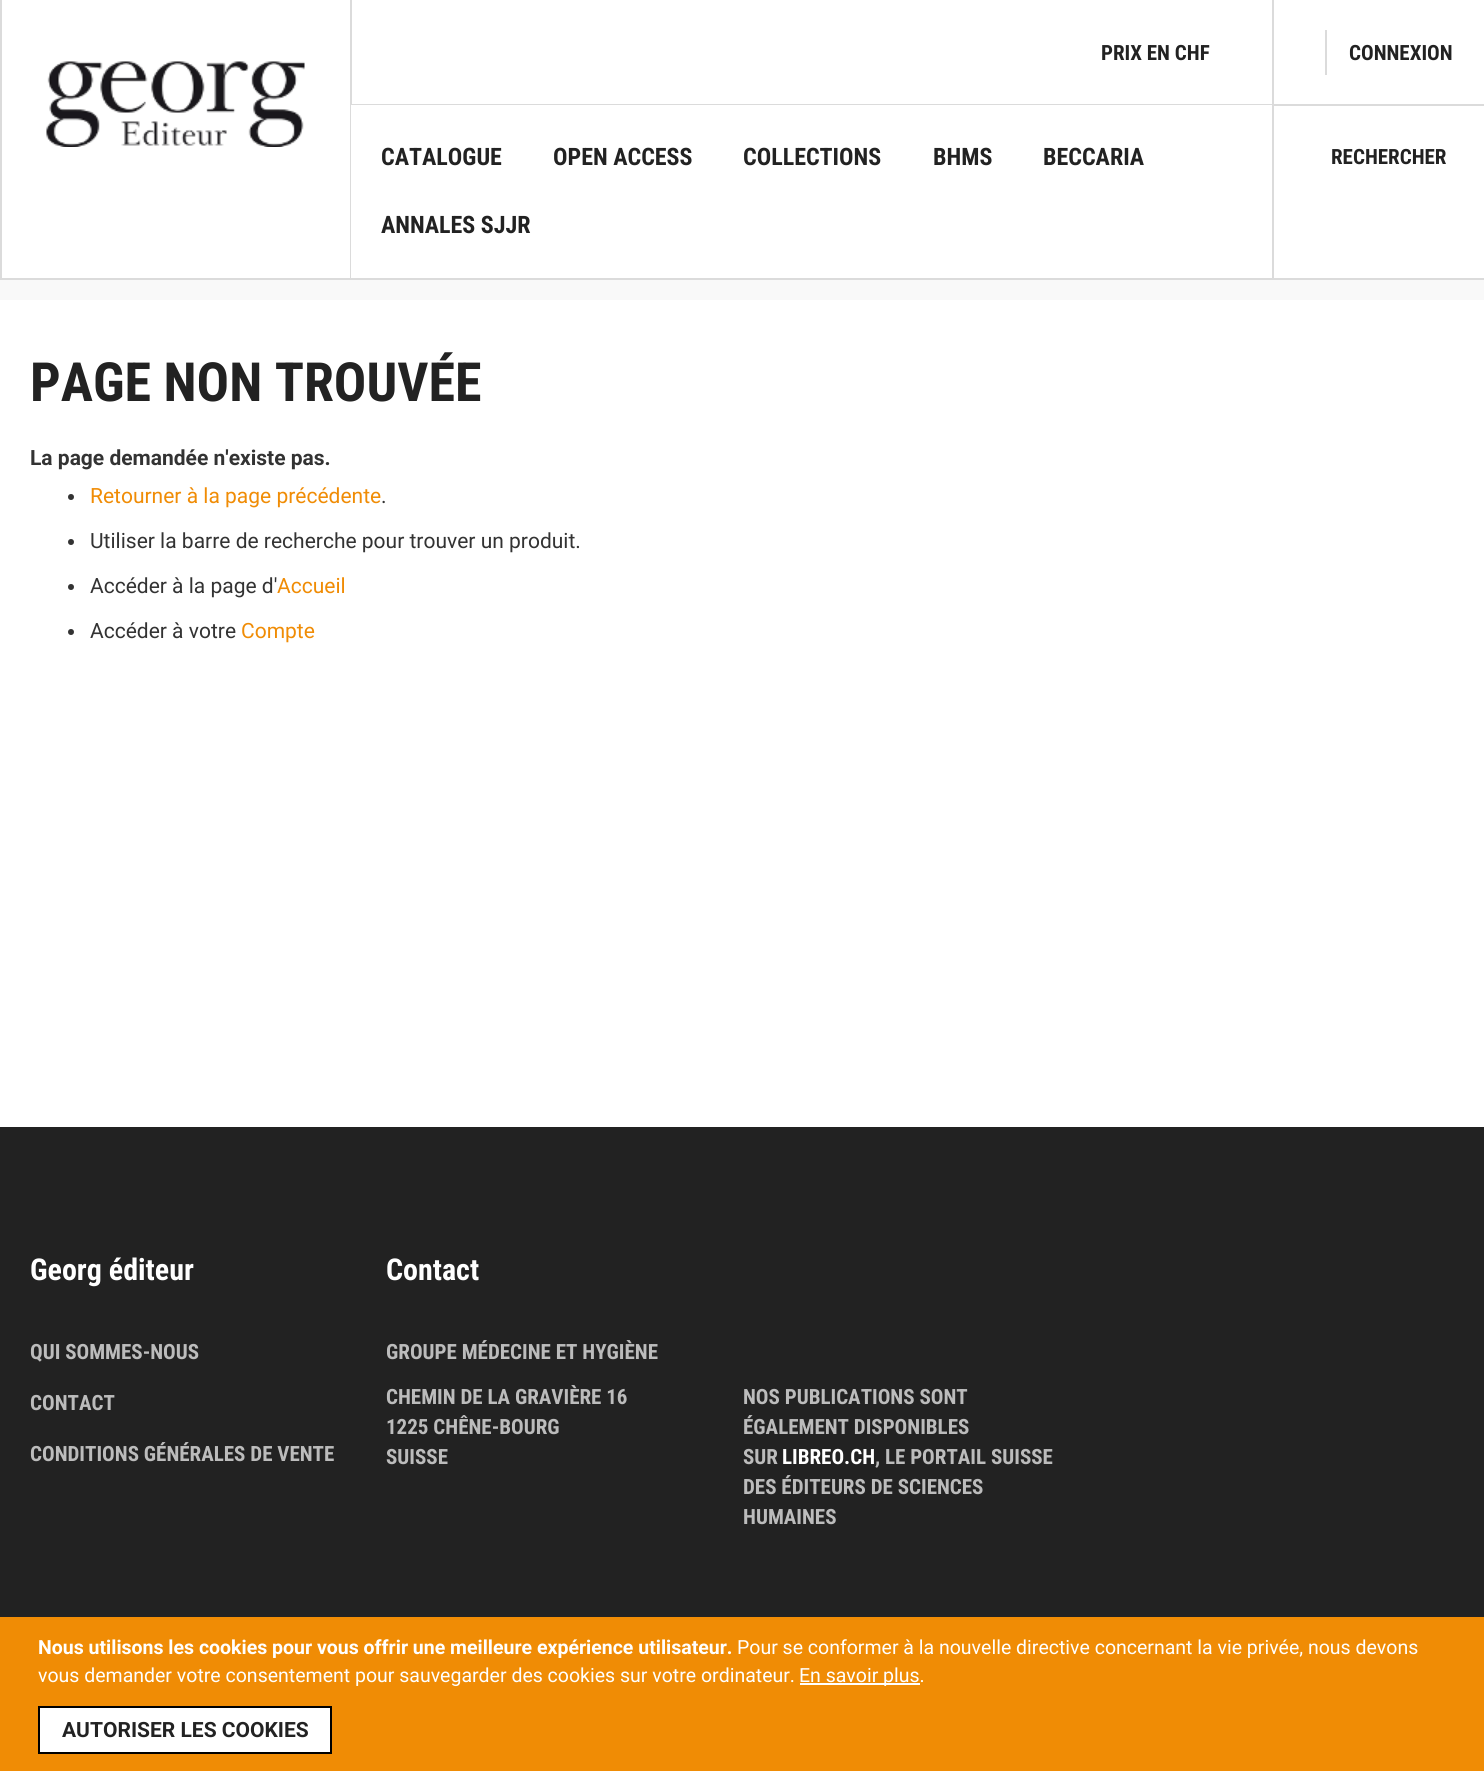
import math
import cairo

surface = cairo.ImageSurface(cairo.FORMAT_RGB24, 1484, 1771)
ctx = cairo.Context(surface)
options = cairo.FontOptions()
options.set_hint_metrics(cairo.HINT_METRICS_OFF)
options.set_hint_style(cairo.HINT_STYLE_NONE)
ctx.set_font_options(options)
ctx.set_miter_limit(4)


def picture(path, x, y, w, h):
    ctx.save()
    ctx.set_source_surface(cairo.ImageSurface.create_from_png(path), x, y)
    ctx.rectangle(x, y, w, h)
    ctx.fill()
    ctx.restore()


ctx.set_source_rgb(1, 1, 1)
ctx.paint()
ctx.set_source_rgb(0.859, 0.859, 0.859)
ctx.rectangle(350, 0, 2, 278)
ctx.fill()
ctx.rectangle(0, 0, 2, 278)
ctx.fill()
picture("img1.png", 46, 61, 259, 86)
ctx.rectangle(351, 104, 1133, 2)
ctx.fill()
ctx.select_font_face("Roboto Condensed", cairo.FONT_SLANT_NORMAL, cairo.FONT_WEIGHT_BOLD)
ctx.set_font_size(21)
ctx.set_source_rgb(0.133, 0.133, 0.133)
ctx.move_to(1101, 60)
ctx.show_text("PRIX EN CHF")
ctx.set_source_rgb(0.859, 0.859, 0.859)
ctx.rectangle(1272, 0, 2, 104)
ctx.fill()
ctx.rectangle(1325, 30, 2, 45)
ctx.fill()
ctx.set_source_rgb(0.133, 0.133, 0.133)
ctx.move_to(1349, 60)
ctx.show_text("CONNEXION")
ctx.set_source_rgb(1, 1, 1)
ctx.rectangle(351, 105, 921, 173)
ctx.fill()
ctx.set_font_size(24)
ctx.set_source_rgb(0.133, 0.133, 0.133)
ctx.move_to(381, 165)
ctx.show_text("CATALOGUE")
ctx.move_to(553, 165)
ctx.show_text("OPEN ACCESS")
ctx.move_to(743, 165)
ctx.show_text("COLLECTIONS")
ctx.move_to(933, 165)
ctx.show_text("BHMS")
ctx.move_to(1043, 165)
ctx.show_text("BECCARIA")
ctx.move_to(381, 233)
ctx.show_text("ANNALES SJJR")
ctx.set_source_rgb(0.859, 0.859, 0.859)
ctx.rectangle(1272, 105, 2, 173)
ctx.fill()
ctx.set_font_size(21)
ctx.set_source_rgb(0.133, 0.133, 0.133)
ctx.move_to(1331, 164)
ctx.show_text("RECHERCHER")
ctx.set_source_rgb(0.973, 0.973, 0.973)
ctx.rectangle(0, 280, 1484, 20)
ctx.fill()
ctx.set_source_rgb(0.859, 0.859, 0.859)
ctx.rectangle(0, 278, 1484, 2)
ctx.fill()
ctx.set_font_size(54)
ctx.set_source_rgb(0.133, 0.133, 0.133)
ctx.move_to(30, 401)
ctx.show_text("PAGE NON TROUVÉE")
ctx.select_font_face("Roboto", cairo.FONT_SLANT_NORMAL, cairo.FONT_WEIGHT_BOLD)
ctx.set_font_size(21)
ctx.set_source_rgb(0.2, 0.2, 0.2)
ctx.move_to(30, 465)
ctx.show_text("La page demandée n'existe pas.")
ctx.new_path()
ctx.arc(71, 497, 3, 0, 2 * math.pi)
ctx.fill()
ctx.select_font_face("Roboto")
ctx.set_source_rgb(0.941, 0.549, 0.02)
ctx.move_to(90, 503)
ctx.show_text("Retourner à la page précédente")
ctx.set_source_rgb(0.2, 0.2, 0.2)
ctx.move_to(381, 503)
ctx.show_text(".")
ctx.new_path()
ctx.arc(71, 542, 3, 0, 2 * math.pi)
ctx.fill()
ctx.move_to(90, 548)
ctx.show_text("Utiliser la barre de recherche pour trouver un produit.")
ctx.new_path()
ctx.arc(71, 587, 3, 0, 2 * math.pi)
ctx.fill()
ctx.move_to(90, 593)
ctx.show_text("Accéder à la page d'")
ctx.set_source_rgb(0.941, 0.549, 0.02)
ctx.move_to(277, 593)
ctx.show_text("Accueil")
ctx.set_source_rgb(0.2, 0.2, 0.2)
ctx.new_path()
ctx.arc(71, 632, 3, 0, 2 * math.pi)
ctx.fill()
ctx.move_to(90, 638)
ctx.show_text("Accéder à votre")
ctx.set_source_rgb(0.941, 0.549, 0.02)
ctx.move_to(241, 638)
ctx.show_text("Compte")
ctx.set_source_rgb(0.133, 0.133, 0.133)
ctx.rectangle(0, 1127, 1484, 490)
ctx.fill()
ctx.select_font_face("Roboto Condensed", cairo.FONT_SLANT_NORMAL, cairo.FONT_WEIGHT_BOLD)
ctx.set_font_size(30)
ctx.set_source_rgb(1, 1, 1)
ctx.move_to(30, 1280)
ctx.show_text("Georg éditeur")
ctx.set_font_size(21)
ctx.set_source_rgb(0.737, 0.737, 0.737)
ctx.move_to(30, 1359)
ctx.show_text("QUI SOMMES-NOUS")
ctx.move_to(30, 1410)
ctx.show_text("CONTACT")
ctx.move_to(30, 1461)
ctx.show_text("CONDITIONS GÉNÉRALES DE VENTE")
ctx.set_font_size(30)
ctx.set_source_rgb(1, 1, 1)
ctx.move_to(386, 1280)
ctx.show_text("Contact")
ctx.set_font_size(21)
ctx.set_source_rgb(0.737, 0.737, 0.737)
ctx.move_to(386, 1359)
ctx.show_text("GROUPE MÉDECINE ET HYGIÈNE")
ctx.move_to(386, 1404)
ctx.show_text("CHEMIN DE LA GRAVIÈRE 16")
ctx.move_to(386, 1434)
ctx.show_text("1225 CHÊNE-BOURG")
ctx.move_to(386, 1464)
ctx.show_text("SUISSE")
ctx.move_to(743, 1404)
ctx.show_text("NOS PUBLICATIONS SONT")
ctx.move_to(743, 1434)
ctx.show_text("ÉGALEMENT DISPONIBLES")
ctx.move_to(743, 1464)
ctx.show_text("SUR")
ctx.set_source_rgb(1, 1, 1)
ctx.move_to(782, 1464)
ctx.show_text("LIBREO.CH")
ctx.set_source_rgb(0.737, 0.737, 0.737)
ctx.move_to(875, 1464)
ctx.show_text(", LE PORTAIL SUISSE")
ctx.move_to(743, 1494)
ctx.show_text("DES ÉDITEURS DE SCIENCES")
ctx.move_to(743, 1524)
ctx.show_text("HUMAINES")
ctx.set_source_rgb(0.941, 0.549, 0.02)
ctx.rectangle(0, 1617, 1484, 154)
ctx.fill()
ctx.select_font_face("Roboto", cairo.FONT_SLANT_NORMAL, cairo.FONT_WEIGHT_BOLD)
ctx.set_font_size(19.5)
ctx.set_source_rgb(1, 1, 1)
ctx.move_to(38, 1654)
ctx.show_text("Nous utilisons les cookies pour vous offrir une meilleure expérience utilisateur.")
ctx.select_font_face("Roboto")
ctx.move_to(737, 1654)
ctx.show_text("Pour se conformer à la nouvelle directive concernant la vie privée, nous devons")
ctx.move_to(38, 1682)
ctx.show_text("vous demander votre consentement pour sauvegarder des cookies sur votre ordinateur.")
ctx.rectangle(800, 1683, 120, 2)
ctx.fill()
ctx.move_to(799, 1682)
ctx.show_text("En savoir plus.")
ctx.rectangle(39, 1707, 292, 46)
ctx.fill_preserve()
ctx.set_source_rgb(0, 0, 0)
ctx.stroke()
ctx.select_font_face("Roboto", cairo.FONT_SLANT_NORMAL, cairo.FONT_WEIGHT_BOLD)
ctx.set_font_size(21)
ctx.set_source_rgb(0.133, 0.133, 0.133)
ctx.move_to(62, 1737)
ctx.show_text("AUTORISER LES COOKIES")
surface.write_to_png("page.png")
